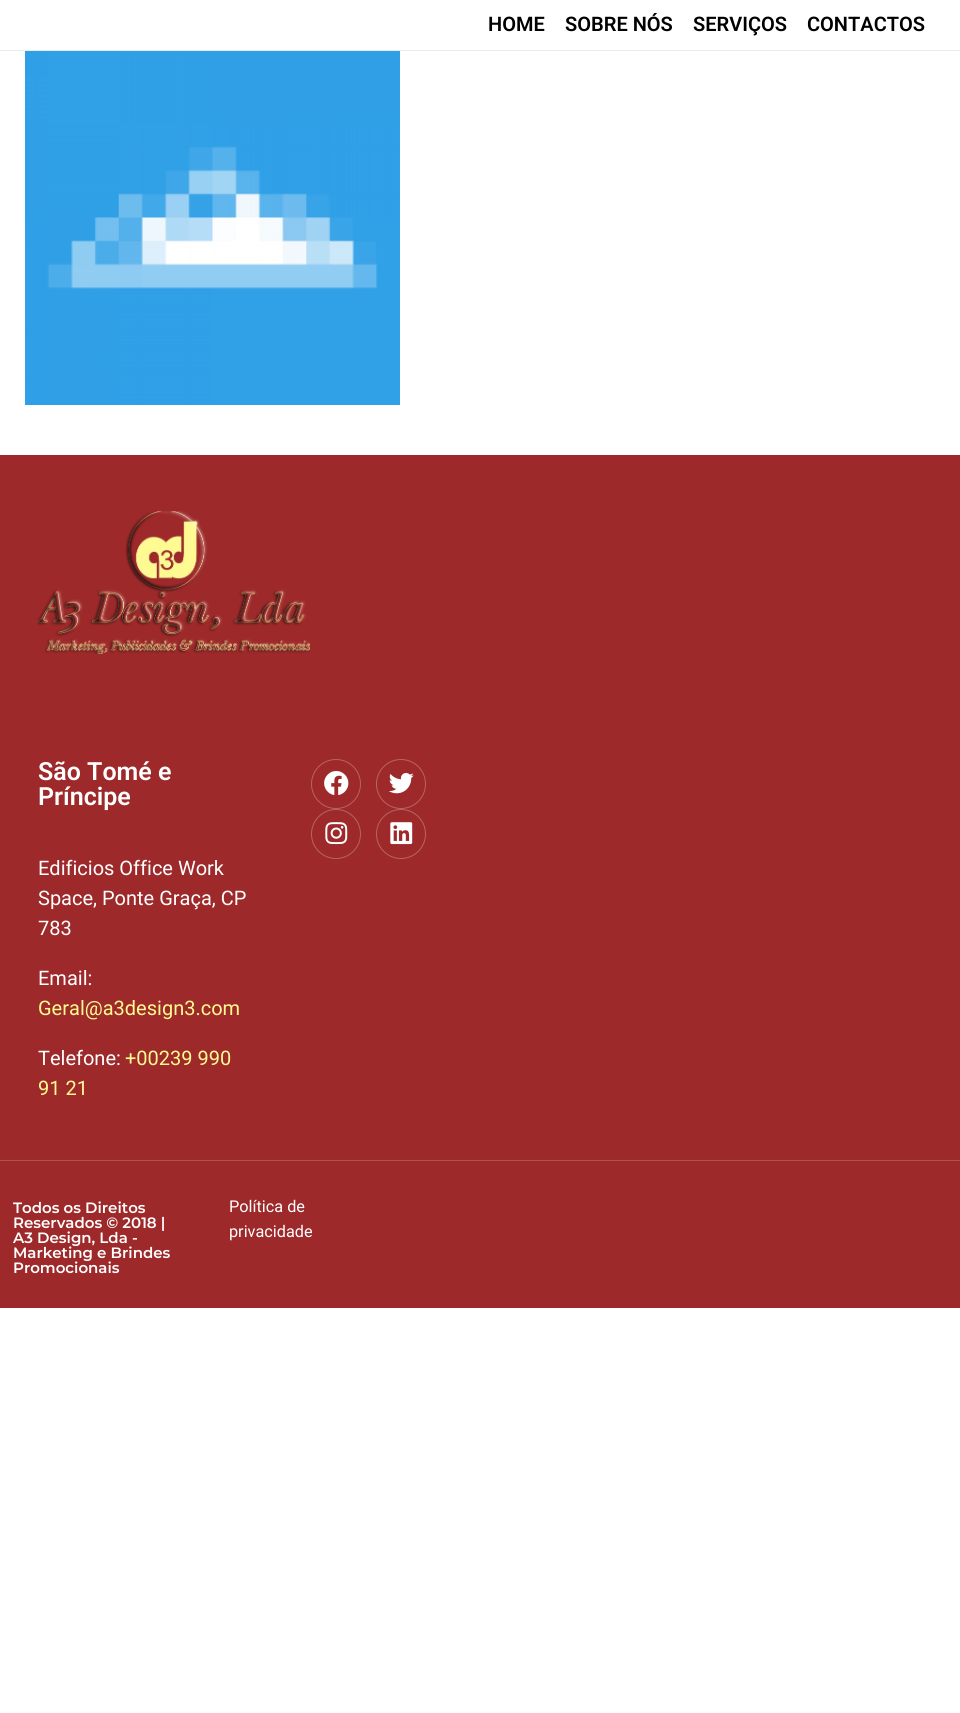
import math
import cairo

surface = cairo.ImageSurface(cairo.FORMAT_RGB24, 960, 1713)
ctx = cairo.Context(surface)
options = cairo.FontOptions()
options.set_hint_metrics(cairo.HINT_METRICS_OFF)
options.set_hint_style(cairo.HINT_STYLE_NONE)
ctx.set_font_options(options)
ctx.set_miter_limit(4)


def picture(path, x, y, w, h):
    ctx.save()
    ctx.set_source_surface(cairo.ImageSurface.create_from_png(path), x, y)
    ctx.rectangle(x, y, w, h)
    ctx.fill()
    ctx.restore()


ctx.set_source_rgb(1, 1, 1)
ctx.paint()
ctx.set_source_rgb(0.914, 0.925, 0.937)
ctx.rectangle(0, 50, 960, 1)
ctx.fill()
ctx.select_font_face("Roboto SemiBold")
ctx.set_font_size(20)
ctx.set_source_rgb(0, 0, 0)
ctx.move_to(488, 31)
ctx.show_text("HOME")
ctx.move_to(565, 31)
ctx.show_text("SOBRE NÓS")
ctx.move_to(693, 31)
ctx.show_text("SERVIÇOS")
ctx.move_to(807, 31)
ctx.show_text("CONTACTOS")
picture("img1.png", 25, 51, 375, 354)
ctx.set_source_rgb(0.616, 0.161, 0.165)
ctx.rectangle(0, 455, 960, 853)
ctx.fill()
picture("img2.png", 37, 511, 273, 143)
ctx.set_font_size(25)
ctx.set_source_rgb(1, 1, 1)
ctx.move_to(38, 780)
ctx.show_text("São Tomé e")
ctx.move_to(38, 805)
ctx.show_text("Príncipe")
ctx.select_font_face("Roboto")
ctx.set_font_size(20)
ctx.move_to(38, 875)
ctx.show_text("Edificios Office Work")
ctx.move_to(38, 905)
ctx.show_text("Space, Ponte Graça, CP")
ctx.move_to(38, 935)
ctx.show_text("783")
ctx.move_to(38, 985)
ctx.show_text("Email:")
ctx.set_source_rgb(0.992, 0.98, 0.569)
ctx.move_to(38, 1015)
ctx.show_text("Geral@a3design3.com")
ctx.set_source_rgb(1, 1, 1)
ctx.move_to(38, 1065)
ctx.show_text("Telefone:")
ctx.set_source_rgb(0.992, 0.98, 0.569)
ctx.move_to(125, 1065)
ctx.show_text("+00239 990")
ctx.move_to(38, 1095)
ctx.show_text("91 21")
ctx.new_path()
ctx.arc(336, 784, 24.5, 0, 2 * math.pi)
ctx.set_source_rgb(0.718, 0.388, 0.392)
ctx.set_line_width(1)
ctx.stroke()
picture("img3.png", 324, 771, 25, 24)
ctx.arc(401, 784, 24.5, 0, 2 * math.pi)
ctx.stroke()
picture("img4.png", 389, 773, 25, 21)
ctx.arc(336, 834, 24.5, 0, 2 * math.pi)
ctx.stroke()
picture("img5.png", 325, 822, 23, 23)
ctx.arc(401, 834, 24.5, 0, 2 * math.pi)
ctx.stroke()
picture("img6.png", 390, 822, 23, 23)
ctx.set_source_rgb(0.686, 0.314, 0.314)
ctx.rectangle(0, 1160, 960, 1)
ctx.fill()
ctx.select_font_face("Montserrat SemiBold")
ctx.set_font_size(15)
ctx.set_source_rgb(1, 1, 1)
ctx.move_to(13, 1213)
ctx.show_text("Todos os Direitos")
ctx.move_to(13, 1228)
ctx.show_text("Reservados © 2018 |")
ctx.move_to(13, 1243)
ctx.show_text("A3 Design, Lda -")
ctx.move_to(13, 1258)
ctx.show_text("Marketing e Brindes")
ctx.move_to(13, 1273)
ctx.show_text("Promocionais")
ctx.select_font_face("Roboto")
ctx.set_font_size(16.25)
ctx.move_to(229, 1212)
ctx.show_text("Política de")
ctx.move_to(229, 1237)
ctx.show_text("privacidade")
surface.write_to_png("page.png")
